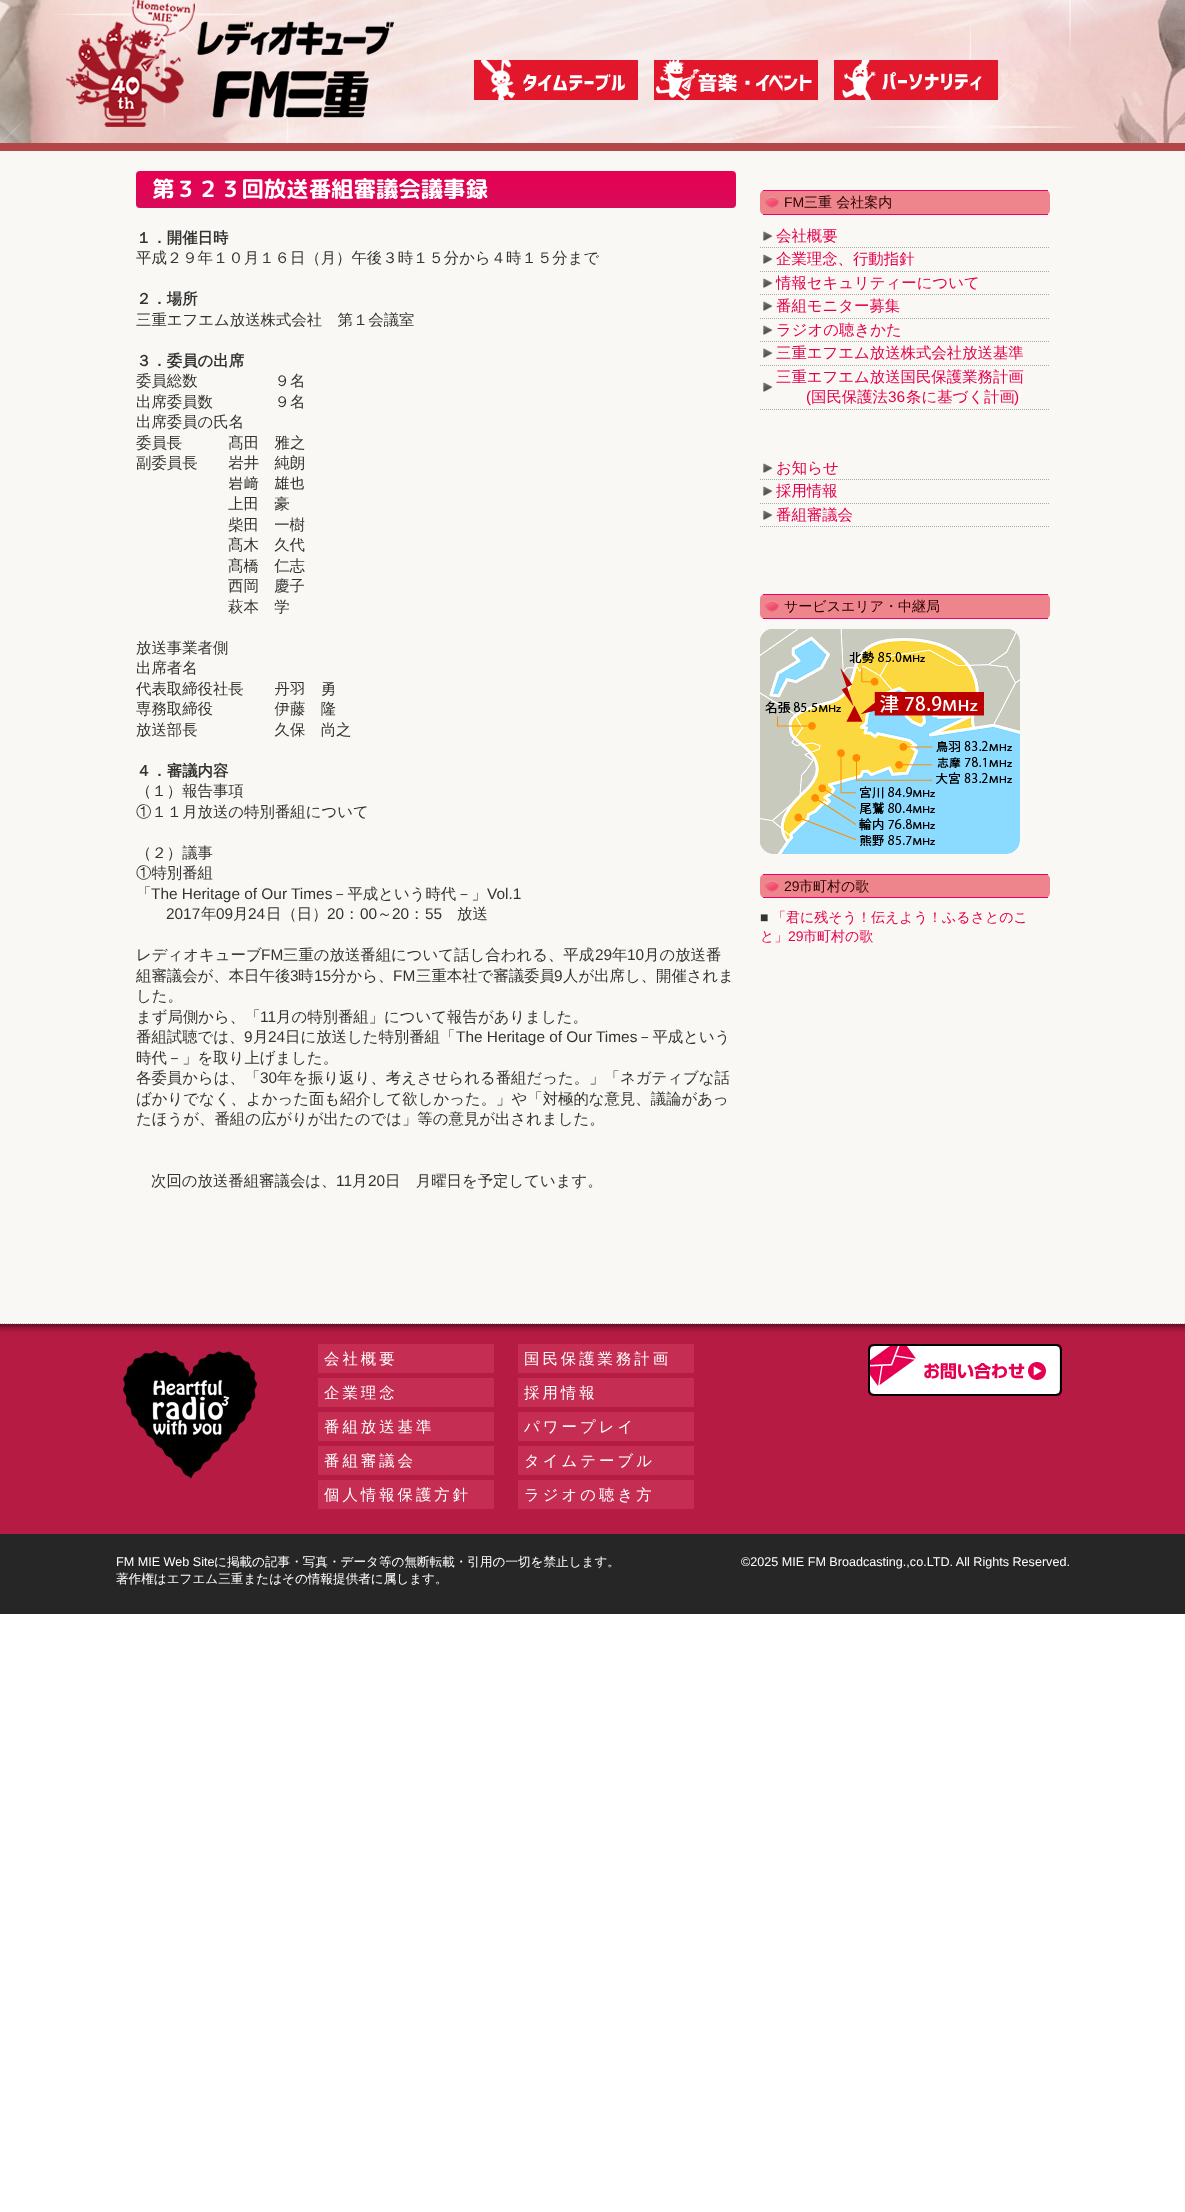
<!DOCTYPE html>
<meta charset="utf-8">
<style>body { margin: 0 } canvas { display: block }</style>
<canvas id="canvas" width="1185" height="2212"></canvas>
<script type="module">
  const canvas = document.getElementById("canvas");
  const ctx = canvas.getContext("2d");
  ctx.miterLimit = 4;
  ctx.fontKerning = "normal";
  async function loadImage(src) {
    const img = new Image();
    img.src = src;
    await img.decode();
    return img;
  }
  let gradient;

  ctx.fillStyle = "#ffffff";
  ctx.fillRect(0, 0, 1185, 2212);
  ctx.drawImage(await loadImage("img1.png"), 0, 0, 1185, 143);
  ctx.fillStyle = "#b34747";
  ctx.fillRect(0, 143, 1185, 8);
  ctx.drawImage(await loadImage("img2.png"), 66, 0, 328, 127);
  ctx.drawImage(await loadImage("img3.png"), 474, 60, 164, 40);
  ctx.drawImage(await loadImage("img4.png"), 654, 60, 164, 40);
  ctx.drawImage(await loadImage("img5.png"), 834, 60, 164, 40);
  ctx.fillStyle = "#f9f8f4";
  ctx.fillRect(0, 151, 1185, 1173);
  ctx.beginPath();
  ctx.moveTo(0, 1323.5);
  ctx.lineTo(1185, 1323.5);
  ctx.strokeStyle = "#cccccc";
  ctx.setLineDash([1, 1]);
  ctx.stroke();
  gradient = ctx.createLinearGradient(436, 171, 436, 208);
  gradient.addColorStop(0, "#e60051");
  gradient.addColorStop(1, "#d90b5a");
  ctx.fillStyle = gradient;
  ctx.beginPath();
  ctx.roundRect(136, 171, 600, 37, 4);
  ctx.fill();
  ctx.font = "bold 22.4px 'Rounded Mplus 1c Bold'";
  ctx.fillStyle = "#ffffff";
  ctx.fillText("第３２３回放送番組審議会議事録", 152, 197);
  ctx.font = "bold 15.4px WenQuanYi Zen Hei";
  ctx.fillStyle = "#333333";
  ctx.fillText("１．開催日時", 136, 243);
  ctx.font = "500 15.4px WenQuanYi Zen Hei";
  ctx.fillText("平成２９年１０月１６日（月）午後３時１５分から４時１５分まで", 136, 263);
  ctx.font = "bold 15.4px WenQuanYi Zen Hei";
  ctx.fillText("２．場所", 136, 304);
  ctx.font = "500 15.4px WenQuanYi Zen Hei";
  ctx.fillText("三重エフエム放送株式会社　第１会議室", 136, 325);
  ctx.font = "bold 15.4px WenQuanYi Zen Hei";
  ctx.fillText("３．委員の出席", 136, 366);
  ctx.font = "500 15.4px WenQuanYi Zen Hei";
  ctx.fillText("委員総数　　　　　９名", 136, 386);
  ctx.fillText("出席委員数　　　　９名", 136, 407);
  ctx.fillText("出席委員の氏名", 136, 427);
  ctx.fillText("委員長　　　髙田　雅之", 136, 448);
  ctx.fillText("副委員長　　岩井　純朗", 136, 468);
  ctx.font = "15.4px IPAPGothic";
  ctx.fillText("岩﨑　雄也", 228, 489);
  ctx.font = "500 15.4px WenQuanYi Zen Hei";
  ctx.fillText("上田　豪", 228, 509);
  ctx.fillText("柴田　一樹", 228, 530);
  ctx.fillText("髙木　久代", 228, 550);
  ctx.fillText("髙橋　仁志", 228, 571);
  ctx.fillText("西岡　慶子", 228, 591);
  ctx.fillText("萩本　学", 228, 612);
  ctx.fillText("放送事業者側", 136, 653);
  ctx.fillText("出席者名", 136, 673);
  ctx.fillText("代表取締役社長　　丹羽　勇", 136, 694);
  ctx.fillText("専務取締役　　　　伊藤　隆", 136, 714);
  ctx.fillText("放送部長　　　　　久保　尚之", 136, 735);
  ctx.font = "bold 15.4px WenQuanYi Zen Hei";
  ctx.fillText("４．審議内容", 136, 776);
  ctx.font = "500 15.4px WenQuanYi Zen Hei";
  ctx.fillText("（１）報告事項", 136, 796);
  ctx.fillText("①１１月放送の特別番組について", 136, 817);
  ctx.fillText("（２）議事", 136, 858);
  ctx.fillText("①特別番組", 136, 878);
  ctx.fillText("「", 136, 899);
  ctx.font = "15.4px Liberation Sans";
  ctx.fillText("The Heritage of Our Times", 151, 899);
  ctx.font = "500 15.4px WenQuanYi Zen Hei";
  ctx.fillText("－平成という時代－」", 332, 899);
  ctx.font = "15.4px Liberation Sans";
  ctx.fillText("Vol.1", 487, 899);
  ctx.fillText("2017", 166, 919);
  ctx.font = "500 15.4px WenQuanYi Zen Hei";
  ctx.fillText("年", 201, 919);
  ctx.font = "15.4px Liberation Sans";
  ctx.fillText("09", 216, 919);
  ctx.font = "500 15.4px WenQuanYi Zen Hei";
  ctx.fillText("月", 233, 919);
  ctx.font = "15.4px Liberation Sans";
  ctx.fillText("24", 248, 919);
  ctx.font = "500 15.4px WenQuanYi Zen Hei";
  ctx.fillText("日（日）", 266, 919);
  ctx.font = "15.4px Liberation Sans";
  ctx.fillText("20", 327, 919);
  ctx.font = "500 15.4px WenQuanYi Zen Hei";
  ctx.fillText("：", 344, 919);
  ctx.font = "15.4px Liberation Sans";
  ctx.fillText("00", 360, 919);
  ctx.font = "500 15.4px WenQuanYi Zen Hei";
  ctx.fillText("～", 377, 919);
  ctx.font = "15.4px Liberation Sans";
  ctx.fillText("20", 392, 919);
  ctx.font = "500 15.4px WenQuanYi Zen Hei";
  ctx.fillText("：", 409, 919);
  ctx.font = "15.4px Liberation Sans";
  ctx.fillText("55", 425, 919);
  ctx.font = "500 15.4px WenQuanYi Zen Hei";
  ctx.fillText("放送", 457, 919);
  ctx.fillText("レディオキューブ", 136, 960);
  ctx.font = "15.4px Liberation Sans";
  ctx.fillText("FM", 261, 960);
  ctx.font = "500 15.4px WenQuanYi Zen Hei";
  ctx.fillText("三重の放送番組について話し合われる、平成", 283, 960);
  ctx.font = "15.4px Liberation Sans";
  ctx.fillText("29", 595, 960);
  ctx.font = "500 15.4px WenQuanYi Zen Hei";
  ctx.fillText("年", 612, 960);
  ctx.font = "15.4px Liberation Sans";
  ctx.fillText("10", 627, 960);
  ctx.font = "500 15.4px WenQuanYi Zen Hei";
  ctx.fillText("月の放送番", 644, 960);
  ctx.fillText("組審議会が、本日午後", 136, 981);
  ctx.font = "15.4px Liberation Sans";
  ctx.fillText("3", 290, 981);
  ctx.font = "500 15.4px WenQuanYi Zen Hei";
  ctx.fillText("時", 298, 981);
  ctx.font = "15.4px Liberation Sans";
  ctx.fillText("15", 314, 981);
  ctx.font = "500 15.4px WenQuanYi Zen Hei";
  ctx.fillText("分から、", 331, 981);
  ctx.font = "15.4px Liberation Sans";
  ctx.fillText("FM", 393, 981);
  ctx.font = "500 15.4px WenQuanYi Zen Hei";
  ctx.fillText("三重本社で審議委員", 416, 981);
  ctx.font = "15.4px Liberation Sans";
  ctx.fillText("9", 554, 981);
  ctx.font = "500 15.4px WenQuanYi Zen Hei";
  ctx.fillText("人が出席し、開催されま", 563, 981);
  ctx.fillText("した。", 136, 1001);
  ctx.fillText("まず局側から、「", 136, 1022);
  ctx.font = "15.4px Liberation Sans";
  ctx.fillText("11", 260, 1022);
  ctx.font = "500 15.4px WenQuanYi Zen Hei";
  ctx.fillText("月の特別番組」について報告がありました。", 276, 1022);
  ctx.fillText("番組試聴では、", 136, 1042);
  ctx.font = "15.4px Liberation Sans";
  ctx.fillText("9", 244, 1042);
  ctx.font = "500 15.4px WenQuanYi Zen Hei";
  ctx.fillText("月", 253, 1042);
  ctx.font = "15.4px Liberation Sans";
  ctx.fillText("24", 268, 1042);
  ctx.font = "500 15.4px WenQuanYi Zen Hei";
  ctx.fillText("日に放送した特別番組「", 285, 1042);
  ctx.font = "15.4px Liberation Sans";
  ctx.fillText("The Heritage of Our Times", 456, 1042);
  ctx.font = "500 15.4px WenQuanYi Zen Hei";
  ctx.fillText("－平成という", 637, 1042);
  ctx.fillText("時代－」を取り上げました。", 136, 1063);
  ctx.fillText("各委員からは、「", 136, 1083);
  ctx.font = "15.4px Liberation Sans";
  ctx.fillText("30", 260, 1083);
  ctx.font = "500 15.4px WenQuanYi Zen Hei";
  ctx.fillText("年を振り返り、考えさせられる番組だった。」「ネガティブな話", 277, 1083);
  ctx.fillText("ばかりでなく、よかった面も紹介して欲しかった。」や「対極的な意見、議論があっ", 136, 1104);
  ctx.fillText("たほうが、番組の広がりが出たのでは」等の意見が出されました。", 136, 1124);
  ctx.fillText("次回の放送番組審議会は、", 151, 1186);
  ctx.font = "15.4px Liberation Sans";
  ctx.fillText("11", 336, 1186);
  ctx.font = "500 15.4px WenQuanYi Zen Hei";
  ctx.fillText("月", 352, 1186);
  ctx.font = "15.4px Liberation Sans";
  ctx.fillText("20", 368, 1186);
  ctx.font = "500 15.4px WenQuanYi Zen Hei";
  ctx.fillText("日　月曜日を予定しています。", 385, 1186);
  ctx.fillStyle = "#ef858c";
  ctx.beginPath();
  ctx.roundRect(760, 190, 290, 25, 5);
  ctx.fill();
  ctx.drawImage(await loadImage("img6.png"), 765, 196, 14, 12);
  ctx.fillStyle = "#ec0067";
  ctx.fillRect(763, 190, 285, 1);
  ctx.fillRect(763, 214, 285, 1);
  ctx.font = "14px Liberation Sans";
  ctx.fillStyle = "#2b0000";
  ctx.fillText("FM", 784, 207);
  ctx.font = "500 14px WenQuanYi Zen Hei";
  ctx.fillText("三重 会社案内", 804, 207);
  ctx.drawImage(await loadImage("img7.png"), 763, 231, 10, 10);
  ctx.beginPath();
  ctx.moveTo(760, 247.5);
  ctx.lineTo(1050, 247.5);
  ctx.strokeStyle = "#aaaaaa";
  ctx.stroke();
  ctx.font = "500 15.4px WenQuanYi Zen Hei";
  ctx.fillStyle = "#e5004f";
  ctx.fillText("会社概要", 776, 241);
  ctx.drawImage(await loadImage("img7.png"), 763, 254, 10, 10);
  ctx.beginPath();
  ctx.moveTo(760, 271.5);
  ctx.lineTo(1050, 271.5);
  ctx.stroke();
  ctx.fillText("企業理念、行動指針", 776, 264);
  ctx.drawImage(await loadImage("img7.png"), 763, 278, 10, 10);
  ctx.beginPath();
  ctx.moveTo(760, 294.5);
  ctx.lineTo(1050, 294.5);
  ctx.stroke();
  ctx.fillText("情報セキュリティーについて", 776, 288);
  ctx.drawImage(await loadImage("img7.png"), 763, 301, 10, 10);
  ctx.beginPath();
  ctx.moveTo(760, 318.5);
  ctx.lineTo(1050, 318.5);
  ctx.stroke();
  ctx.fillText("番組モニター募集", 776, 311);
  ctx.drawImage(await loadImage("img7.png"), 763, 325, 10, 10);
  ctx.beginPath();
  ctx.moveTo(760, 341.5);
  ctx.lineTo(1050, 341.5);
  ctx.stroke();
  ctx.fillText("ラジオの聴きかた", 776, 335);
  ctx.drawImage(await loadImage("img7.png"), 763, 348, 10, 10);
  ctx.beginPath();
  ctx.moveTo(760, 365.5);
  ctx.lineTo(1050, 365.5);
  ctx.stroke();
  ctx.fillText("三重エフエム放送株式会社放送基準", 776, 358);
  ctx.drawImage(await loadImage("img7.png"), 763, 382, 10, 10);
  ctx.beginPath();
  ctx.moveTo(760, 409.5);
  ctx.lineTo(1050, 409.5);
  ctx.stroke();
  ctx.fillText("三重エフエム放送国民保護業務計画", 776, 382);
  ctx.font = "15.4px Liberation Sans";
  ctx.fillText("(", 806, 402);
  ctx.font = "500 15.4px WenQuanYi Zen Hei";
  ctx.fillText("国民保護法", 811, 402);
  ctx.font = "15.4px Liberation Sans";
  ctx.fillText("36", 888, 402);
  ctx.font = "500 15.4px WenQuanYi Zen Hei";
  ctx.fillText("条に基づく計画", 906, 402);
  ctx.font = "15.4px Liberation Sans";
  ctx.fillText(")", 1014, 402);
  ctx.drawImage(await loadImage("img7.png"), 763, 463, 10, 10);
  ctx.beginPath();
  ctx.moveTo(760, 479.5);
  ctx.lineTo(1050, 479.5);
  ctx.stroke();
  ctx.font = "500 15.4px WenQuanYi Zen Hei";
  ctx.fillText("お知らせ", 776, 473);
  ctx.drawImage(await loadImage("img7.png"), 763, 486, 10, 10);
  ctx.beginPath();
  ctx.moveTo(760, 503.5);
  ctx.lineTo(1050, 503.5);
  ctx.stroke();
  ctx.fillText("採用情報", 776, 496);
  ctx.drawImage(await loadImage("img7.png"), 763, 510, 10, 10);
  ctx.beginPath();
  ctx.moveTo(760, 526.5);
  ctx.lineTo(1050, 526.5);
  ctx.stroke();
  ctx.fillText("番組審議会", 776, 520);
  ctx.fillStyle = "#ef858c";
  ctx.beginPath();
  ctx.roundRect(760, 594, 290, 25, 5);
  ctx.fill();
  ctx.drawImage(await loadImage("img6.png"), 765, 600, 14, 12);
  ctx.fillStyle = "#ec0067";
  ctx.fillRect(763, 594, 285, 1);
  ctx.fillRect(763, 618, 285, 1);
  ctx.font = "500 14px WenQuanYi Zen Hei";
  ctx.fillStyle = "#2b0000";
  ctx.fillText("サービスエリア・中継局", 784, 611);
  ctx.drawImage(await loadImage("img8.png"), 760, 629, 260, 225);
  ctx.fillStyle = "#ef858c";
  ctx.beginPath();
  ctx.roundRect(760, 874, 290, 24, 5);
  ctx.fill();
  ctx.drawImage(await loadImage("img6.png"), 765, 880, 14, 12);
  ctx.fillStyle = "#ec0067";
  ctx.fillRect(763, 874, 285, 1);
  ctx.fillRect(763, 897, 285, 1);
  ctx.font = "14px Liberation Sans";
  ctx.fillStyle = "#2b0000";
  ctx.fillText("29", 784, 891);
  ctx.font = "500 14px WenQuanYi Zen Hei";
  ctx.fillText("市町村の歌", 799, 891);
  ctx.font = "14px Liberation Sans";
  ctx.fillStyle = "#333333";
  ctx.fillText("■", 760, 922);
  ctx.font = "500 14px WenQuanYi Zen Hei";
  ctx.fillStyle = "#e5004f";
  ctx.fillText("「君に残そう！伝えよう！ふるさとのこ", 772, 922);
  ctx.fillText("と」", 760, 941);
  ctx.font = "14px Liberation Sans";
  ctx.fillText("29", 788, 941);
  ctx.font = "500 14px WenQuanYi Zen Hei";
  ctx.fillText("市町村の歌", 803, 941);
  ctx.fillStyle = "#b61b43";
  ctx.fillRect(0, 1324, 1185, 210);
  ctx.drawImage(await loadImage("img9.png"), 0, 1324, 1185, 9);
  ctx.drawImage(await loadImage("img10.png"), 118, 1344, 140, 136);
  ctx.fillStyle = "#c62d53";
  ctx.fillRect(318, 1344, 176, 29);
  ctx.letterSpacing = "3px";
  ctx.font = "500 15.4px WenQuanYi Zen Hei";
  ctx.fillStyle = "#ffffff";
  ctx.fillText("会社概要", 324, 1364);
  ctx.fillStyle = "#c62d53";
  ctx.fillRect(318, 1378, 176, 29);
  ctx.fillStyle = "#ffffff";
  ctx.fillText("企業理念", 324, 1398);
  ctx.fillStyle = "#c62d53";
  ctx.fillRect(318, 1412, 176, 29);
  ctx.fillStyle = "#ffffff";
  ctx.fillText("番組放送基準", 324, 1432);
  ctx.fillStyle = "#c62d53";
  ctx.fillRect(318, 1446, 176, 29);
  ctx.fillStyle = "#ffffff";
  ctx.fillText("番組審議会", 324, 1466);
  ctx.fillStyle = "#c62d53";
  ctx.fillRect(318, 1480, 176, 29);
  ctx.fillStyle = "#ffffff";
  ctx.fillText("個人情報保護方針", 324, 1500);
  ctx.fillStyle = "#c62d53";
  ctx.fillRect(518, 1344, 176, 29);
  ctx.fillStyle = "#ffffff";
  ctx.fillText("国民保護業務計画", 524, 1364);
  ctx.fillStyle = "#c62d53";
  ctx.fillRect(518, 1378, 176, 29);
  ctx.fillStyle = "#ffffff";
  ctx.fillText("採用情報", 524, 1398);
  ctx.fillStyle = "#c62d53";
  ctx.fillRect(518, 1412, 176, 29);
  ctx.fillStyle = "#ffffff";
  ctx.fillText("パワープレイ", 524, 1432);
  ctx.fillStyle = "#c62d53";
  ctx.fillRect(518, 1446, 176, 29);
  ctx.fillStyle = "#ffffff";
  ctx.fillText("タイムテーブル", 524, 1466);
  ctx.fillStyle = "#c62d53";
  ctx.fillRect(518, 1480, 176, 29);
  ctx.fillStyle = "#ffffff";
  ctx.fillText("ラジオの聴き方", 524, 1500);
  ctx.drawImage(await loadImage("img11.png"), 868, 1344, 194, 52);
  ctx.fillStyle = "#262626";
  ctx.fillRect(0, 1534, 1185, 80);
  ctx.letterSpacing = "0px";
  ctx.font = "12.6px Liberation Sans";
  ctx.fillStyle = "#ffffff";
  ctx.fillText("FM MIE Web Site", 116, 1566);
  ctx.font = "500 12.6px WenQuanYi Zen Hei";
  ctx.fillText("に掲載の記事・写真・データ等の無断転載・引用の一切を禁止します。", 214, 1566);
  ctx.fillText("著作権はエフエム三重またはその情報提供者に属します。", 116, 1583);
  ctx.font = "12.6px Liberation Sans";
  ctx.fillText("©2025 MIE FM Broadcasting.,co.LTD. All Rights Reserved.", 741, 1566);
</script>
